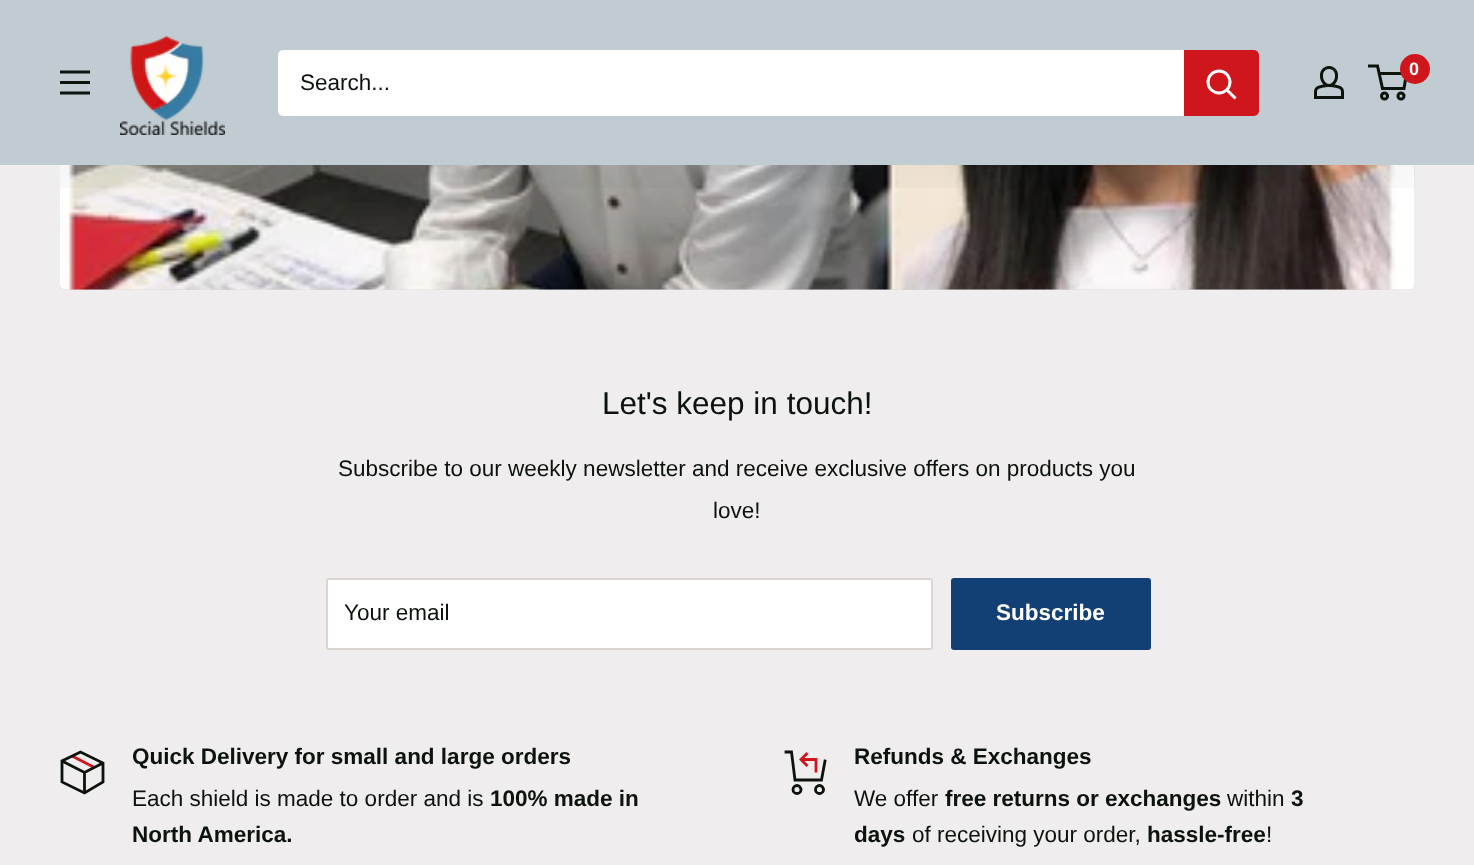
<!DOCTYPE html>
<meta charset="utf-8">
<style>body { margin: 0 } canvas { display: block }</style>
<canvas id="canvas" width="1474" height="865"></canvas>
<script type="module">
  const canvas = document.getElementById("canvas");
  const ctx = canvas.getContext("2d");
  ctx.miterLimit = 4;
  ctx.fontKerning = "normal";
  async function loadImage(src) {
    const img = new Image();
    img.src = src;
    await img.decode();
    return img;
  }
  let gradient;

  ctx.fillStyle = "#f0edee";
  ctx.fillRect(0, 0, 1474, 865);
  ctx.fillStyle = "#f3f4f4";
  ctx.beginPath();
  ctx.roundRect(60, -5, 1355, 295, 5);
  ctx.fill();
  ctx.fillStyle = "#c1ccd2";
  ctx.fillRect(0, 0, 1474, 165);
  ctx.drawImage(await loadImage("img1.png"), 60, 70, 30, 25);
  ctx.drawImage(await loadImage("img2.png"), 120, 35, 105, 100);
  ctx.fillStyle = "#ffffff";
  ctx.beginPath();
  ctx.roundRect(278, 50, 981, 66, 5);
  ctx.fill();
  ctx.font = "22.5px Liberation Sans";
  ctx.fillStyle = "#0c120c";
  ctx.fillText("Search...", 300, 90);
  ctx.fillStyle = "#cf161c";
  ctx.beginPath();
  ctx.roundRect(1184, 50, 75, 66, [0, 5, 5, 0]);
  ctx.fill();
  ctx.beginPath();
  ctx.moveTo(1234.5, 97.5);
  ctx.lineTo(1227, 90);
  ctx.strokeStyle = "#ffffff";
  ctx.lineWidth = 3;
  ctx.lineCap = "square";
  ctx.stroke();
  ctx.beginPath();
  ctx.arc(1219, 82, 11, 0, Math.PI * 2);
  ctx.stroke();
  ctx.drawImage(await loadImage("img3.png"), 1314, 66, 30, 33);
  ctx.beginPath();
  ctx.arc(1384.5, 96, 3, 0, Math.PI * 2);
  ctx.strokeStyle = "#0c120c";
  ctx.stroke();
  ctx.beginPath();
  ctx.arc(1401, 96, 3, 0, Math.PI * 2);
  ctx.stroke();
  ctx.beginPath();
  ctx.moveTo(1379, 73.5);
  ctx.lineTo(1406.5, 73.5);
  ctx.lineTo(1404, 88.5);
  ctx.lineTo(1382.5, 88.5);
  ctx.lineTo(1377.5, 66);
  ctx.lineTo(1368, 66);
  ctx.lineCap = "butt";
  ctx.stroke();
  ctx.beginPath();
  ctx.arc(1415, 69, 15, 0, Math.PI * 2);
  ctx.fill();
  ctx.font = "bold 18px Liberation Sans";
  ctx.fillStyle = "#ffffff";
  ctx.fillText("0", 1409, 75);
  ctx.drawImage(await loadImage("img4.png"), 60, 165, 1355, 125);
  ctx.drawImage(await loadImage("img5.png"), 60, 165, 1355, 125);
  gradient = ctx.createLinearGradient(737, 290, 737, -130);
  gradient.addColorStop(0.15, "rgba(0, 0, 0, 0)");
  gradient.addColorStop(1, "rgba(0, 0, 0, 0.2)");
  ctx.fillStyle = gradient;
  ctx.fillRect(60, 165, 1355, 23);
  ctx.font = "31.5px Liberation Sans";
  ctx.fillStyle = "#0c120c";
  ctx.fillText("Let's keep in touch!", 602, 414);
  ctx.font = "22.5px Liberation Sans";
  ctx.fillText("Subscribe to our weekly newsletter and receive exclusive offers on products you", 338, 476);
  ctx.fillText("love!", 713, 518);
  ctx.fillStyle = "#ffffff";
  ctx.beginPath();
  ctx.roundRect(327, 579, 605, 70, 2);
  ctx.fill();
  ctx.strokeStyle = "#dcd5cf";
  ctx.lineWidth = 2;
  ctx.stroke();
  ctx.fillStyle = "#0c120c";
  ctx.fillText("Your email", 344, 620);
  ctx.fillStyle = "#134074";
  ctx.beginPath();
  ctx.roundRect(951, 578, 200, 72, 3);
  ctx.fill();
  ctx.font = "bold 22.5px Liberation Sans";
  ctx.fillStyle = "#ffffff";
  ctx.fillText("Subscribe", 996, 620);
  ctx.beginPath();
  ctx.moveTo(72, 756);
  ctx.lineTo(94.5, 767.5);
  ctx.strokeStyle = "#cf161c";
  ctx.lineWidth = 2.8;
  ctx.stroke();
  ctx.beginPath();
  ctx.moveTo(103, 763);
  ctx.lineTo(84.5, 772.5);
  ctx.lineTo(62, 761);
  ctx.moveTo(84.5, 772.5);
  ctx.lineTo(84.5, 793);
  ctx.strokeStyle = "#0c120c";
  ctx.stroke();
  ctx.beginPath();
  ctx.moveTo(103, 763);
  ctx.lineTo(103, 782);
  ctx.lineTo(84.5, 793);
  ctx.lineTo(62, 782);
  ctx.lineTo(62, 761);
  ctx.lineTo(80.5, 752);
  ctx.closePath();
  ctx.lineCap = "square";
  ctx.stroke();
  ctx.fillStyle = "#0c120c";
  ctx.fillText("Quick Delivery for small and large orders", 132, 764);
  ctx.font = "22.5px Liberation Sans";
  ctx.fillText("Each shield is made to order and is", 132, 806);
  ctx.font = "bold 22.5px Liberation Sans";
  ctx.fillText("100% made in", 490, 806);
  ctx.fillText("North America.", 132, 842);
  ctx.beginPath();
  ctx.moveTo(801, 759.5);
  ctx.lineTo(816, 759.5);
  ctx.lineTo(816, 772.5);
  ctx.strokeStyle = "#cf161c";
  ctx.lineCap = "butt";
  ctx.stroke();
  ctx.beginPath();
  ctx.moveTo(806.5, 765);
  ctx.lineTo(801, 759.5);
  ctx.lineTo(806.5, 754);
  ctx.lineCap = "square";
  ctx.stroke();
  ctx.beginPath();
  ctx.moveTo(825, 761);
  ctx.lineTo(821.5, 780);
  ctx.lineTo(795, 780);
  ctx.lineTo(791.5, 752);
  ctx.lineTo(786, 752);
  ctx.strokeStyle = "#0c120c";
  ctx.stroke();
  ctx.beginPath();
  ctx.arc(797, 789.5, 4, 0, Math.PI * 2);
  ctx.stroke();
  ctx.beginPath();
  ctx.arc(819.5, 789.5, 4, 0, Math.PI * 2);
  ctx.stroke();
  ctx.fillText("Refunds & Exchanges", 854, 764);
  ctx.font = "22.5px Liberation Sans";
  ctx.fillText("We offer", 854, 806);
  ctx.font = "bold 22.5px Liberation Sans";
  ctx.fillText("free returns or exchanges", 945, 806);
  ctx.font = "22.5px Liberation Sans";
  ctx.fillText("within", 1227, 806);
  ctx.font = "bold 22.5px Liberation Sans";
  ctx.fillText("3", 1291, 806);
  ctx.fillText("days", 854, 842);
  ctx.font = "22.5px Liberation Sans";
  ctx.fillText("of receiving your order,", 912, 842);
  ctx.font = "bold 22.5px Liberation Sans";
  ctx.fillText("hassle-free", 1147, 842);
  ctx.font = "22.5px Liberation Sans";
  ctx.fillText("!", 1266, 842);
</script>
